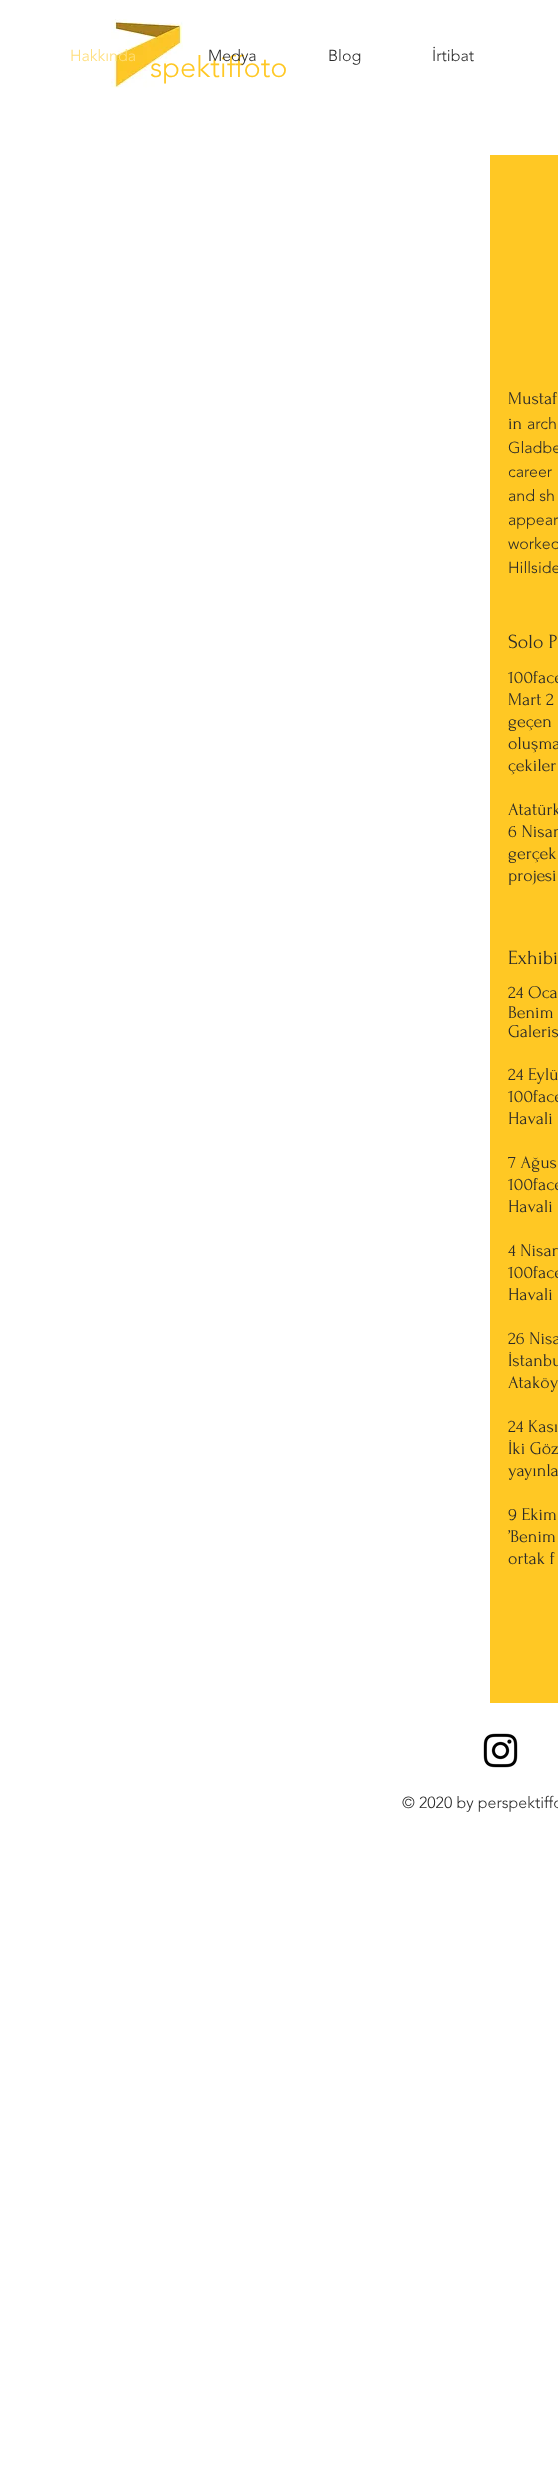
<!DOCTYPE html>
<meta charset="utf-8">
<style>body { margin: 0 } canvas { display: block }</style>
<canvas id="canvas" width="558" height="2472"></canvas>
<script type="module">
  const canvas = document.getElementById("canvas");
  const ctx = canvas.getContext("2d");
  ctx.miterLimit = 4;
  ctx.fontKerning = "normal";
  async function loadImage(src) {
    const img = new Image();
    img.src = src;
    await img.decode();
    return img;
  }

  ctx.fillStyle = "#ffffff";
  ctx.fillRect(0, 0, 558, 2472);
  ctx.drawImage(await loadImage("img1.png"), 111, 19, 72, 69);
  ctx.font = "300 16px 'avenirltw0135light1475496'";
  ctx.fillStyle = "#ffde7a";
  ctx.fillText("Hakkında", 70, 61);
  ctx.font = "300 29px 'avenirltw0135light1475496'";
  ctx.fillStyle = "#ffc824";
  ctx.fillText("spektiffoto", 150, 77);
  ctx.font = "300 16px 'avenirltw0135light1475496'";
  ctx.fillStyle = "#2a2a2a";
  ctx.fillText("Medya", 208, 61);
  ctx.fillText("Blog", 328, 61);
  ctx.fillText("İrtibat", 432, 61);
  ctx.fillStyle = "#ffc824";
  ctx.fillRect(490, 155, 68, 1548);
  ctx.font = "18px Forum";
  ctx.fillStyle = "#2a2a2a";
  ctx.fillText("Mustaf", 508, 404);
  ctx.fillText("in", 508, 429);
  ctx.font = "300 16px 'avenirltw0135light1475496'";
  ctx.fillText("arch", 527, 429);
  ctx.fillText("Gladbe", 508, 453);
  ctx.fillText("career", 508, 477);
  ctx.fillText("and sh", 508, 501);
  ctx.fillText("appear", 508, 525);
  ctx.fillText("worked", 508, 549);
  ctx.fillText("Hillside", 508, 573);
  ctx.font = "20px Forum";
  ctx.fillText("Solo P", 508, 648);
  ctx.font = "18px Forum";
  ctx.fillText("100face", 508, 683);
  ctx.fillText("Mart 2", 508, 705);
  ctx.fillText("geçen", 508, 727);
  ctx.fillText("oluşma", 508, 749);
  ctx.fillText("çekiler", 508, 771);
  ctx.fillText("Atatürk", 508, 815);
  ctx.fillText("6 Nisan", 508, 837);
  ctx.fillText("gerçek", 508, 859);
  ctx.fillText("projesi", 508, 881);
  ctx.font = "20px Forum";
  ctx.fillText("Exhibi", 508, 964);
  ctx.font = "18px Forum";
  ctx.fillText("24 Oca", 508, 998);
  ctx.fillText("Benim", 508, 1018);
  ctx.fillText("Galeris", 508, 1037);
  ctx.fillText("24 Eylü", 508, 1080);
  ctx.fillText("100face", 508, 1102);
  ctx.fillText("Havali", 508, 1124);
  ctx.fillText("7 Ağus", 508, 1168);
  ctx.fillText("100face", 508, 1190);
  ctx.fillText("Havali", 508, 1212);
  ctx.fillText("4 Nisan", 508, 1256);
  ctx.fillText("100face", 508, 1278);
  ctx.fillText("Havali", 508, 1300);
  ctx.fillText("26 Nisa", 508, 1344);
  ctx.fillText("İstanbu", 508, 1366);
  ctx.fillText("Ataköy", 508, 1388);
  ctx.fillText("24 Kası", 508, 1432);
  ctx.fillText("İki Göz", 508, 1454);
  ctx.fillText("yayınla", 508, 1476);
  ctx.fillText("9 Ekim", 508, 1520);
  ctx.fillText("’Benim", 508, 1542);
  ctx.fillText("ortak f", 508, 1564);
  ctx.drawImage(await loadImage("img2.png"), 483, 1733, 35, 35);
  ctx.font = "300 16px 'avenirltw0135light1475496'";
  ctx.fillText("© 2020 by perspektiffo", 402, 1808);
</script>
